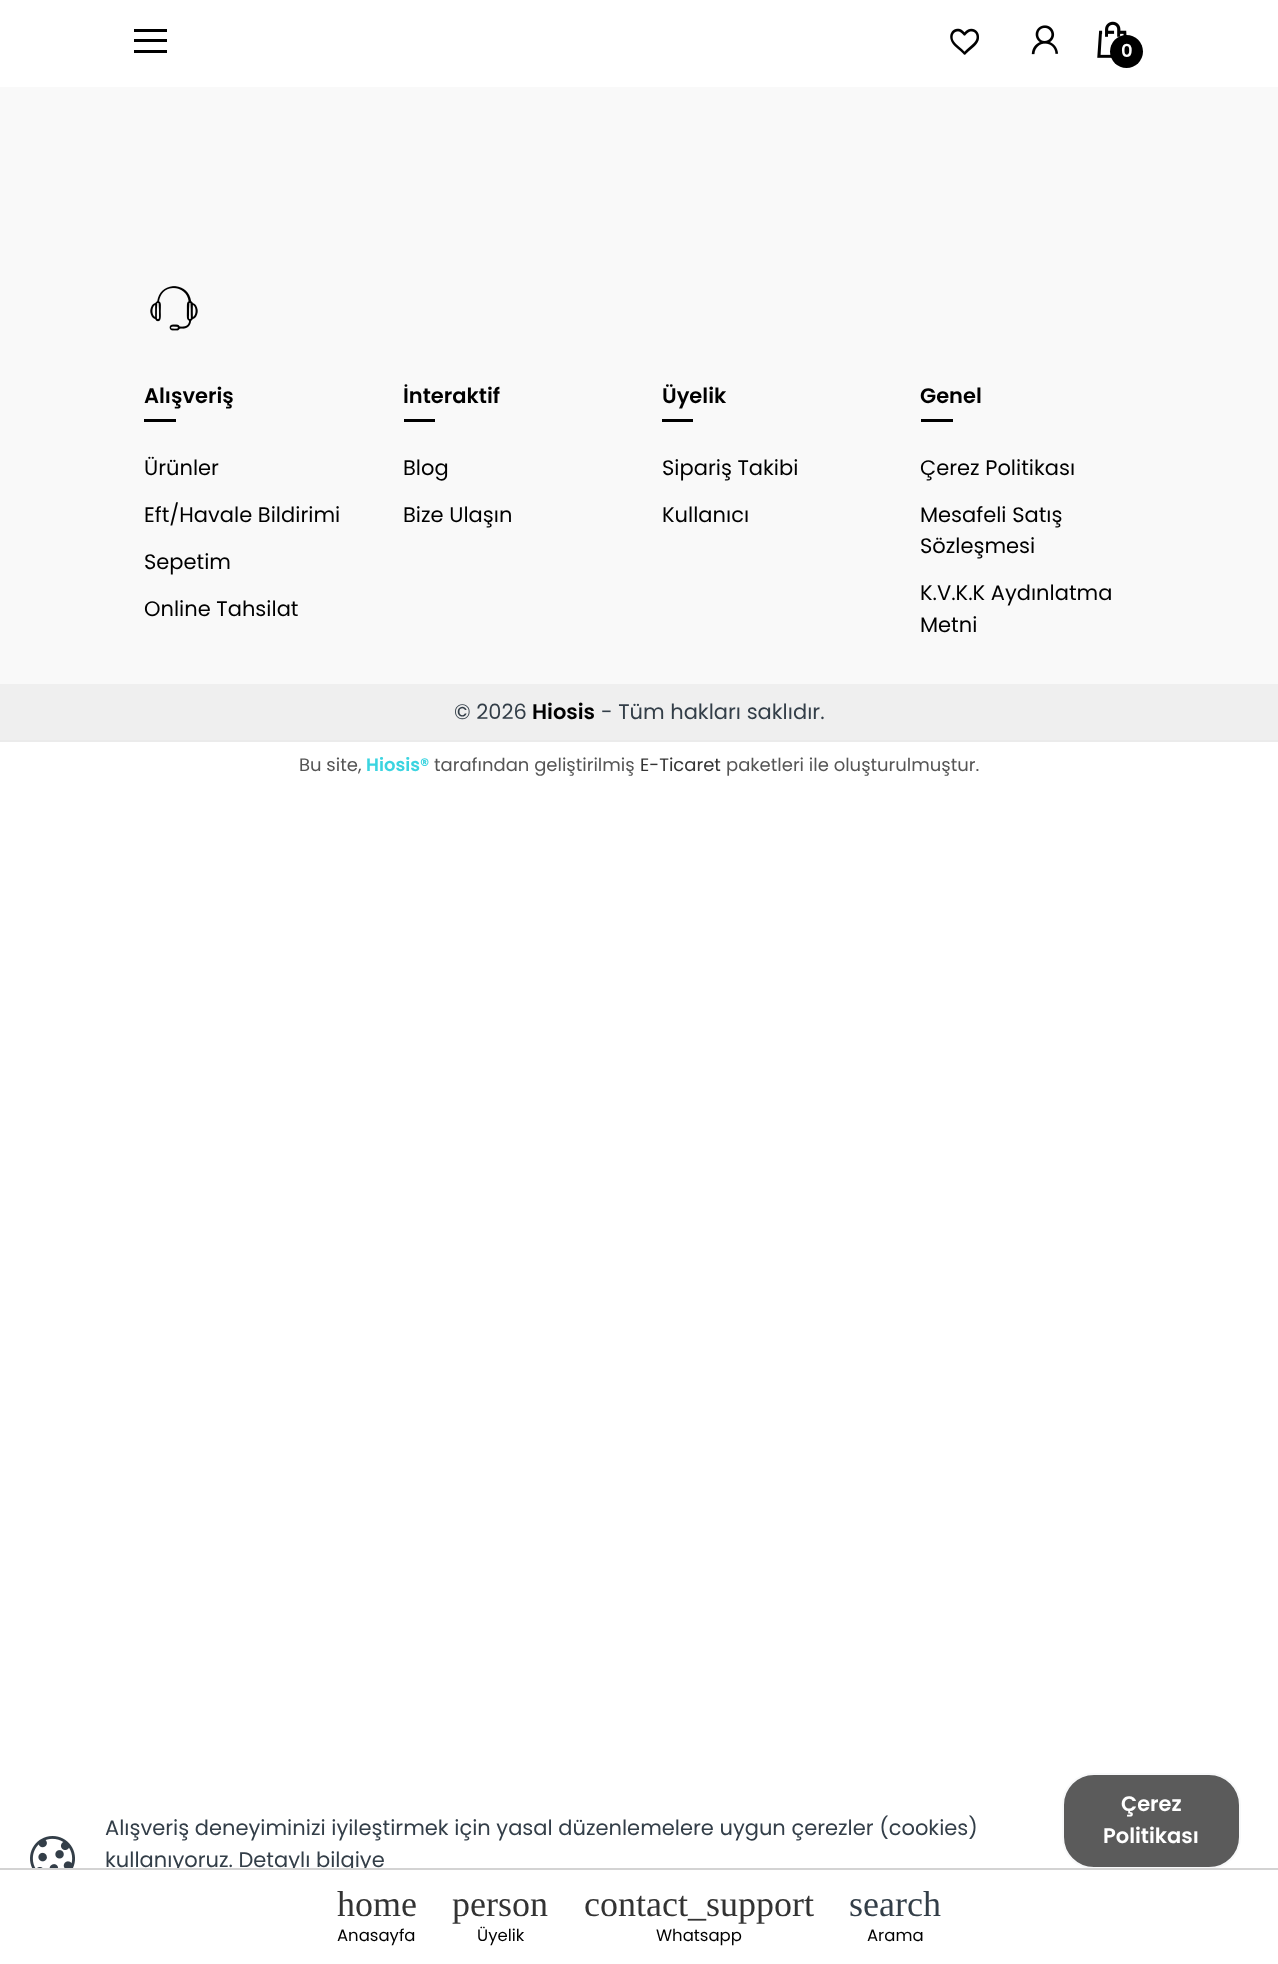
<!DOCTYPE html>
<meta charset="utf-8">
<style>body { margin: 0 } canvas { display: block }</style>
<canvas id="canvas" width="1278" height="1964"></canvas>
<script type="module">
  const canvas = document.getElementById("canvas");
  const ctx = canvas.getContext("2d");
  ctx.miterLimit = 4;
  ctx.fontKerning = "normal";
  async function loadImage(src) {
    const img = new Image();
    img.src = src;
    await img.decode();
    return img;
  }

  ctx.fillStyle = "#ffffff";
  ctx.fillRect(0, 0, 1278, 1964);
  ctx.fillStyle = "#000000";
  ctx.fillRect(134, 29, 33, 3);
  ctx.fillRect(134, 39, 33, 3);
  ctx.fillRect(134, 50, 33, 3);
  ctx.drawImage(await loadImage("img1.png"), 950, 28, 29, 27);
  ctx.drawImage(await loadImage("img2.png"), 1031, 25, 28, 30);
  ctx.drawImage(await loadImage("img3.png"), 1097, 21, 30, 37);
  ctx.beginPath();
  ctx.arc(1126.5, 51.5, 16.5, 0, Math.PI * 2);
  ctx.fill();
  ctx.font = "600 18px Poppins";
  ctx.fillStyle = "#ffffff";
  ctx.fillText("0", 1121, 57);
  ctx.fillStyle = "#f9f9f9";
  ctx.fillRect(0, 87, 1278, 597);
  ctx.drawImage(await loadImage("img4.png"), 150, 286, 48, 45);
  ctx.font = "600 21px Poppins";
  ctx.fillStyle = "#000000";
  ctx.fillText("Alışveriş", 144, 403);
  ctx.fillRect(144, 419, 32, 3);
  ctx.font = "21px Poppins";
  ctx.fillText("Ürünler", 144, 475);
  ctx.fillText("Eft/Havale Bildirimi", 144, 522);
  ctx.fillText("Sepetim", 144, 569);
  ctx.fillText("Online Tahsilat", 144, 616);
  ctx.font = "600 21px Poppins";
  ctx.fillText("İnteraktif", 403, 403);
  ctx.fillRect(404, 419, 31, 3);
  ctx.font = "21px Poppins";
  ctx.fillText("Blog", 403, 475);
  ctx.fillText("Bize Ulaşın", 403, 522);
  ctx.font = "600 21px Poppins";
  ctx.fillText("Üyelik", 662, 403);
  ctx.fillRect(662, 419, 31, 3);
  ctx.font = "21px Poppins";
  ctx.fillText("Sipariş Takibi", 662, 475);
  ctx.fillText("Kullanıcı", 662, 522);
  ctx.font = "600 21px Poppins";
  ctx.fillText("Genel", 920, 403);
  ctx.fillRect(921, 419, 32, 3);
  ctx.font = "21px Poppins";
  ctx.fillText("Çerez Politikası", 920, 475);
  ctx.fillText("Mesafeli Satış", 920, 522);
  ctx.fillText("Sözleşmesi", 920, 553);
  ctx.fillText("K.V.K.K Aydınlatma", 920, 600);
  ctx.fillText("Metni", 920, 632);
  ctx.fillStyle = "#efefef";
  ctx.fillRect(0, 684, 1278, 56);
  ctx.fillStyle = "#333e48";
  ctx.fillText("© 2026", 454, 719);
  ctx.font = "600 21px Poppins";
  ctx.fillStyle = "#000000";
  ctx.fillText("Hiosis", 532, 719);
  ctx.font = "21px Poppins";
  ctx.fillStyle = "#333e48";
  ctx.fillText("- Tüm hakları saklıdır.", 601, 719);
  ctx.fillStyle = "#ebebeb";
  ctx.fillRect(0, 740, 1278, 2);
  ctx.font = "18px Poppins";
  ctx.fillStyle = "#555555";
  ctx.fillText("Bu site,", 299, 771);
  ctx.font = "600 18px Poppins";
  ctx.fillStyle = "#3bd4e0";
  ctx.fillText("Hiosis®", 366, 771);
  ctx.font = "18px Poppins";
  ctx.fillStyle = "#555555";
  ctx.fillText("tarafından geliştirilmiş", 434, 771);
  ctx.fillStyle = "#333333";
  ctx.fillText("E-Ticaret", 640, 771);
  ctx.fillStyle = "#555555";
  ctx.fillText("paketleri ile oluşturulmuştur.", 726, 771);
  ctx.font = "21px Poppins";
  ctx.fillStyle = "#333e48";
  ctx.fillText("kullanıyoruz. Detaylı bilgiye", 105, 1867);
  ctx.fillStyle = "#ffffff";
  ctx.fillRect(175, 1870, 191, 3);
  ctx.fillStyle = "#5b5b5b";
  ctx.beginPath();
  ctx.roundRect(1063, 1774, 177, 94, 31);
  ctx.fill();
  ctx.strokeStyle = "#f8f9fa";
  ctx.lineWidth = 2;
  ctx.stroke();
  ctx.fillStyle = "#d3d3d3";
  ctx.fillRect(0, 1868, 1278, 2);
  ctx.font = "36px Liberation Serif";
  ctx.fillStyle = "#333333";
  ctx.fillText("home", 337, 1916);
  ctx.font = "16.5px Poppins";
  ctx.fillStyle = "#000000";
  ctx.fillText("Anasayfa", 337, 1941);
  ctx.font = "36px Liberation Serif";
  ctx.fillStyle = "#333333";
  ctx.fillText("person", 452, 1916);
  ctx.font = "16.5px Poppins";
  ctx.fillStyle = "#000000";
  ctx.fillText("Üyelik", 477, 1941);
  ctx.font = "36px Liberation Serif";
  ctx.fillStyle = "#333333";
  ctx.fillText("contact_support", 584, 1916);
  ctx.font = "16.5px Poppins";
  ctx.fillStyle = "#000000";
  ctx.fillText("Whatsapp", 656, 1941);
  ctx.font = "36px Liberation Serif";
  ctx.fillStyle = "#333e48";
  ctx.fillText("search", 849, 1916);
  ctx.font = "16.5px Poppins";
  ctx.fillStyle = "#000000";
  ctx.fillText("Arama", 867, 1941);
  ctx.drawImage(await loadImage("img5.png"), 30, 1836, 45, 32);
  ctx.font = "21px Poppins";
  ctx.fillStyle = "#333e48";
  ctx.fillText("Alışveriş deneyiminizi iyileştirmek için yasal düzenlemelere uygun çerezler (cookies)", 105, 1835);
  ctx.font = "600 21px Poppins";
  ctx.fillStyle = "#ffffff";
  ctx.fillText("Çerez", 1121, 1811);
  ctx.fillText("Politikası", 1103, 1843);
</script>
